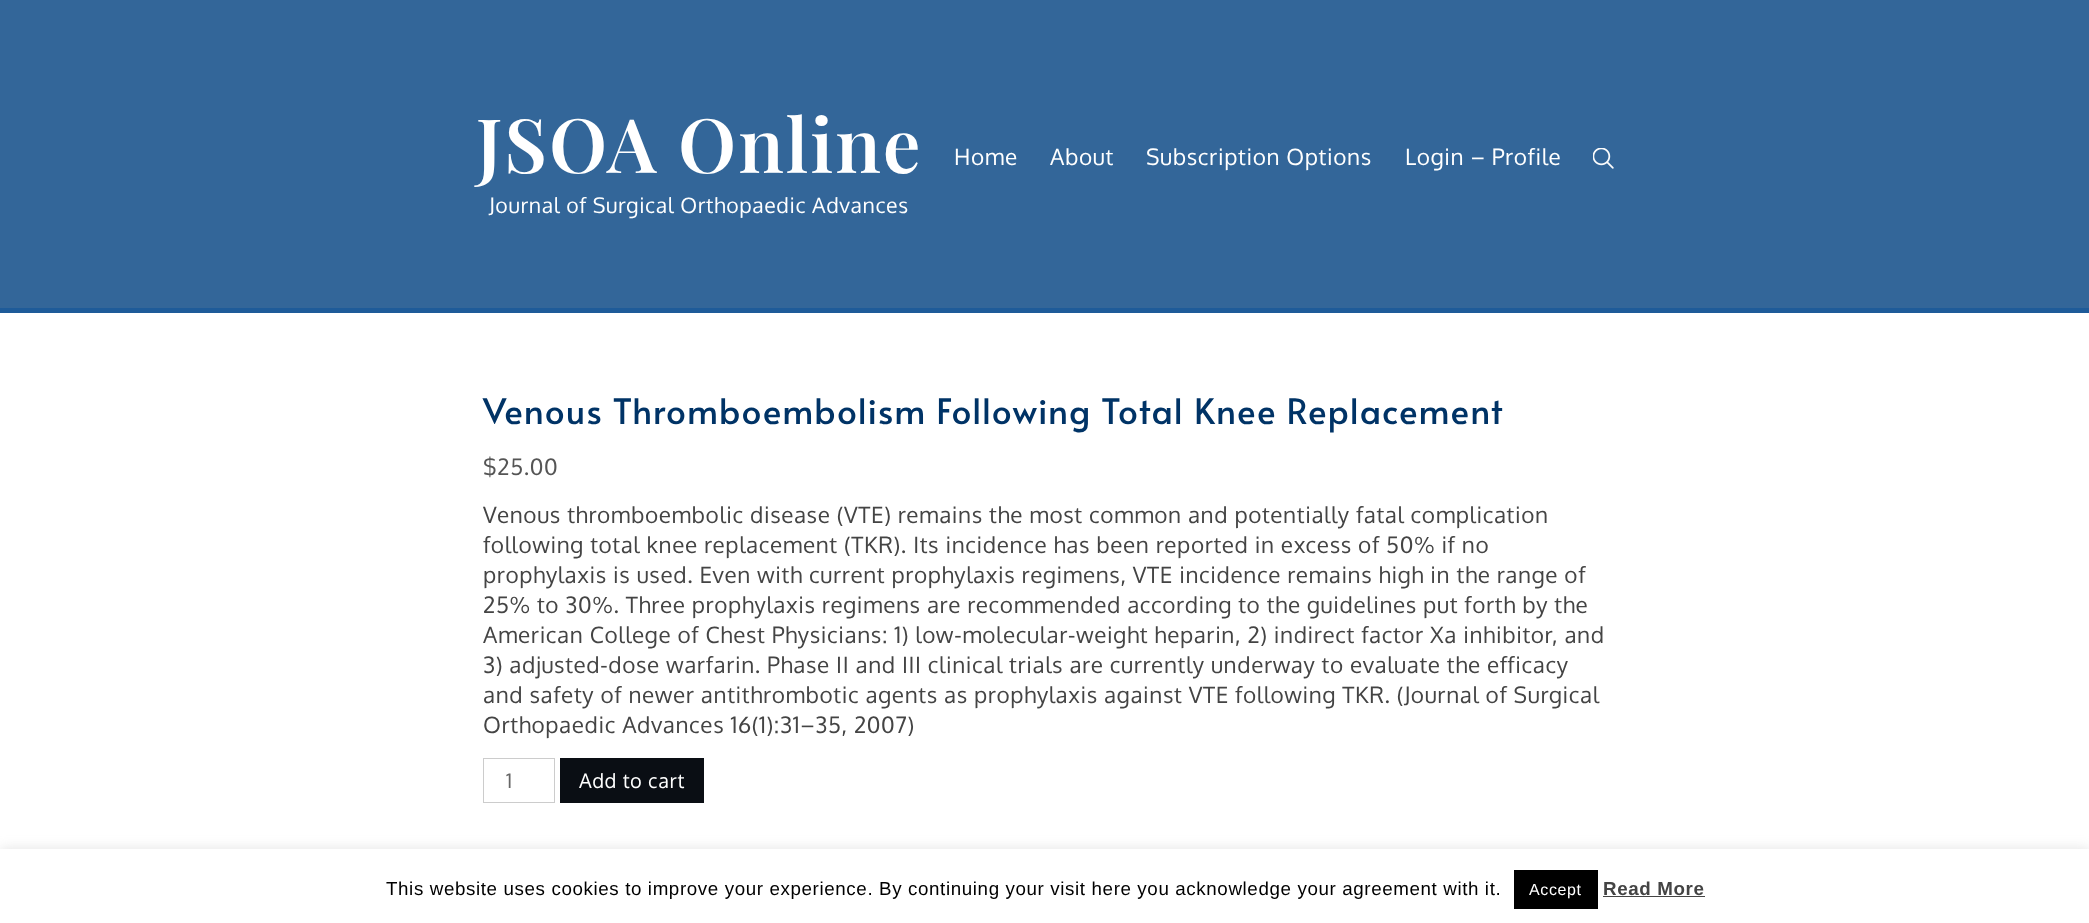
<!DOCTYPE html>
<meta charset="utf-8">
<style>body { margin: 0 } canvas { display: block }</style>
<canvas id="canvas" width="2089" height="923"></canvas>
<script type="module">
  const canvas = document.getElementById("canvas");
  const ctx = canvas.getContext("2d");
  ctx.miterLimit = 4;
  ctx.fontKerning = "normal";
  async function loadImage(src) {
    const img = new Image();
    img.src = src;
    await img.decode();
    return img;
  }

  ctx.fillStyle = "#ffffff";
  ctx.fillRect(0, 0, 2089, 923);
  ctx.fillStyle = "#336699";
  ctx.fillRect(0, 0, 2089, 308);
  ctx.letterSpacing = "1.9px";
  ctx.font = "600 75px Playfair Display";
  ctx.fillStyle = "#ffffff";
  ctx.fillText("JSOA Online", 476, 173);
  ctx.letterSpacing = "0.62px";
  ctx.font = "21.25px Oxygen";
  ctx.fillText("Journal of Surgical Orthopaedic Advances", 489, 213);
  ctx.font = "22.5px Oxygen";
  ctx.fillText("Home", 954, 165);
  ctx.fillText("About", 1050, 165);
  ctx.fillText("Subscription Options", 1146, 165);
  ctx.fillText("Login – Profile", 1405, 165);
  ctx.drawImage(await loadImage("img1.png"), 1593, 148, 21, 21);
  ctx.fillStyle = "#1e5b99";
  ctx.fillRect(0, 308, 2089, 5);
  ctx.letterSpacing = "1.25px";
  ctx.font = "35px Alata";
  ctx.fillStyle = "#003366";
  ctx.fillText("Venous Thromboembolism Following Total Knee Replacement", 483, 424);
  ctx.letterSpacing = "0.62px";
  ctx.font = "22.5px Oxygen";
  ctx.fillStyle = "#555555";
  ctx.fillText("$25.00", 483, 475);
  ctx.fillStyle = "#444444";
  ctx.fillText("Venous thromboembolic disease (VTE) remains the most common and potentially fatal complication", 483, 523);
  ctx.fillText("following total knee replacement (TKR). Its incidence has been reported in excess of 50% if no", 483, 553);
  ctx.fillText("prophylaxis is used. Even with current prophylaxis regimens, VTE incidence remains high in the range of", 483, 583);
  ctx.fillText("25% to 30%. Three prophylaxis regimens are recommended according to the guidelines put forth by the", 483, 613);
  ctx.fillText("American College of Chest Physicians: 1) low-molecular-weight heparin, 2) indirect factor Xa inhibitor, and", 483, 643);
  ctx.fillText("3) adjusted-dose warfarin. Phase II and III clinical trials are currently underway to evaluate the efficacy", 483, 673);
  ctx.fillText("and safety of newer antithrombotic agents as prophylaxis against VTE following TKR. (Journal of Surgical", 483, 703);
  ctx.fillText("Orthopaedic Advances 16(1):31–35, 2007)", 483, 733);
  ctx.strokeStyle = "#cccccc";
  ctx.strokeRect(483.5, 758.5, 71, 44);
  ctx.font = "20px Oxygen";
  ctx.fillStyle = "#666666";
  ctx.fillText("1", 506, 788);
  ctx.fillStyle = "#0a0e14";
  ctx.fillRect(560, 758, 144, 45);
  ctx.fillStyle = "#ffffff";
  ctx.fillText("Add to cart", 579, 788);
  ctx.fillStyle = "rgba(172, 171, 171, 0.3)";
  ctx.filter = "blur(6px)";
  ctx.beginPath();
  ctx.rect(0, 848, 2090, 75);
  ctx.fill();
  ctx.filter = "none";
  ctx.fillStyle = "#ffffff";
  ctx.fillRect(0, 849, 2089, 74);
  ctx.font = "18.75px Liberation Sans";
  ctx.fillStyle = "#000000";
  ctx.fillText("This website uses cookies to improve your experience. By continuing your visit here you acknowledge your agreement with it.", 386, 895);
  ctx.fillRect(1514, 870, 84, 39);
  ctx.font = "16px Liberation Sans";
  ctx.fillStyle = "#ffffff";
  ctx.fillText("Accept", 1529, 895);
  ctx.font = "bold 18.75px Liberation Sans";
  ctx.fillStyle = "#444444";
  ctx.fillText("Read More", 1603, 895);
  ctx.fillRect(1603, 896, 102, 1);
</script>
